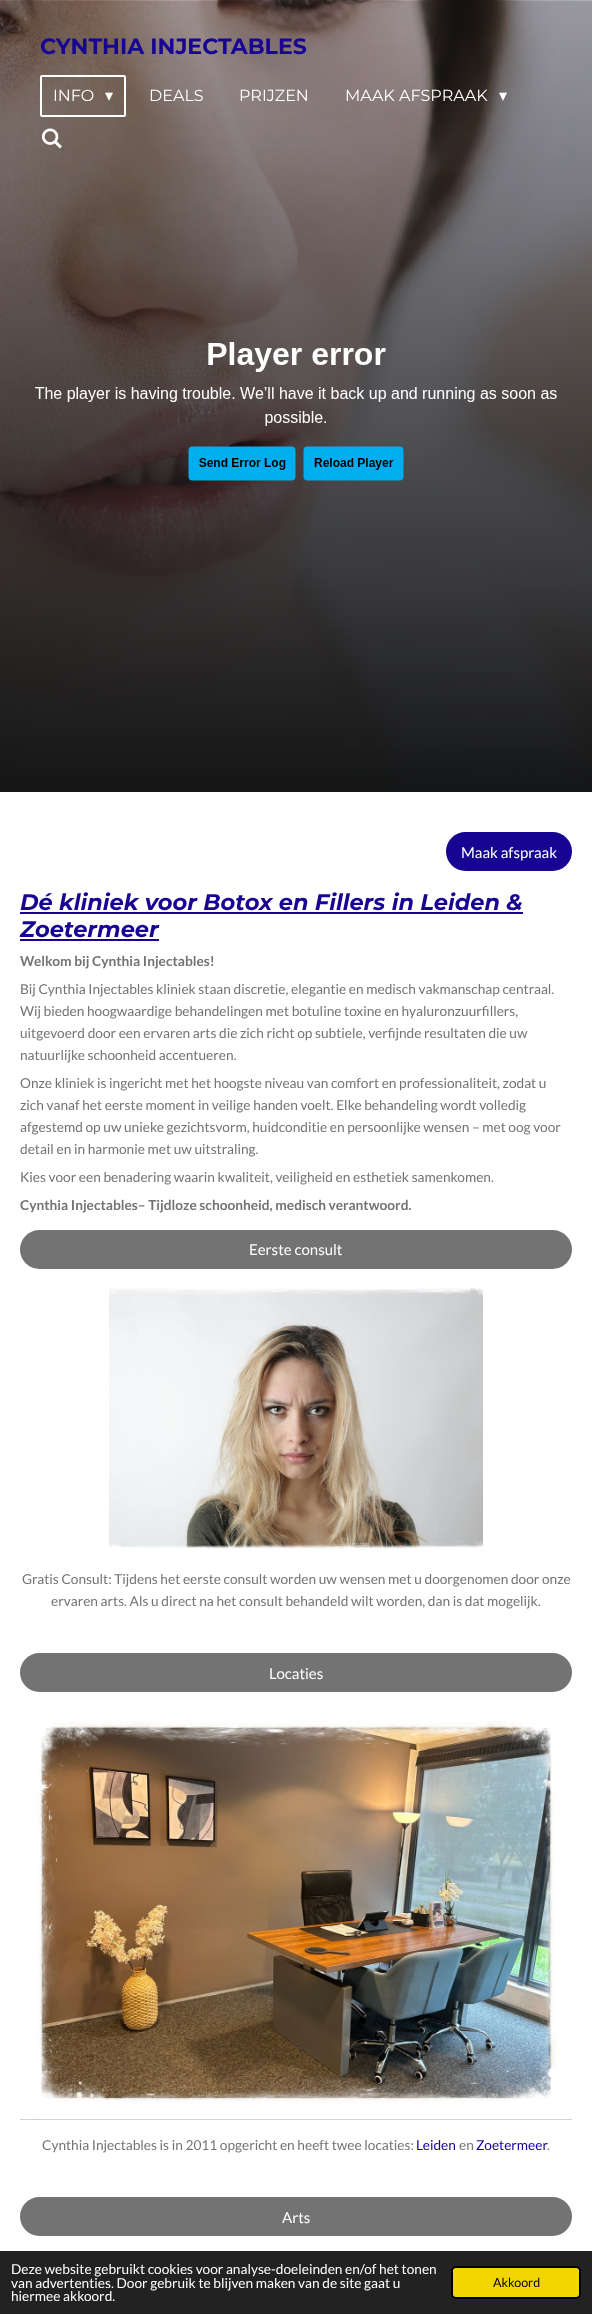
<!DOCTYPE html>
<meta charset="utf-8">
<style>body { margin: 0 } canvas { display: block }</style>
<canvas id="canvas" width="592" height="2314"></canvas>
<script type="module">
  const canvas = document.getElementById("canvas");
  const ctx = canvas.getContext("2d");
  ctx.miterLimit = 4;
  ctx.fontKerning = "normal";
  async function loadImage(src) {
    const img = new Image();
    img.src = src;
    await img.decode();
    return img;
  }

  ctx.fillStyle = "#ffffff";
  ctx.fillRect(0, 0, 592, 2314);
  ctx.drawImage(await loadImage("img1.png"), 0, 0, 592, 786);
  ctx.drawImage(await loadImage("img2.png"), 0, 0, 592, 792);
  ctx.font = "bold 22.1px Montserrat";
  ctx.fillStyle = "#180492";
  ctx.fillText("CYNTHIA INJECTABLES", 40, 54);
  ctx.beginPath();
  ctx.roundRect(41, 76, 84, 40, 1);
  ctx.strokeStyle = "#ffffff";
  ctx.lineWidth = 2;
  ctx.stroke();
  ctx.font = "16px Montserrat";
  ctx.fillStyle = "#ffffff";
  ctx.fillText("INFO", 53, 101);
  ctx.font = "16px DejaVu Sans";
  ctx.fillText("▾", 105, 101);
  ctx.font = "16px Montserrat";
  ctx.fillText("DEALS", 149, 101);
  ctx.fillText("PRIJZEN", 239, 101);
  ctx.fillText("MAAK AFSPRAAK", 345, 101);
  ctx.font = "16px DejaVu Sans";
  ctx.fillText("▾", 499, 101);
  ctx.drawImage(await loadImage("img3.png"), 42, 128, 20, 21);
  ctx.fillStyle = "#180492";
  ctx.beginPath();
  ctx.roundRect(446, 832, 126, 39, 19.5);
  ctx.fill();
  ctx.font = "15px Lato";
  ctx.fillStyle = "#ffffff";
  ctx.fillText("Maak afspraak", 461, 858);
  ctx.font = "italic bold 22.5px Montserrat";
  ctx.fillStyle = "#180492";
  ctx.fillText("Dé kliniek voor Botox en Fillers in Leiden &", 20, 910);
  ctx.fillRect(20, 912, 503, 2);
  ctx.fillText("Zoetermeer", 20, 937);
  ctx.fillRect(20, 939, 139, 2);
  ctx.font = "bold 13.7px Lato";
  ctx.fillStyle = "#737373";
  ctx.fillText("Welkom bij Cynthia Injectables!", 20, 966);
  ctx.font = "13.7px Lato";
  ctx.fillText("Bij Cynthia Injectables kliniek staan discretie, elegantie en medisch vakmanschap centraal.", 20, 994);
  ctx.fillText("Wij bieden hoogwaardige behandelingen met botuline toxine en hyaluronzuurfillers,", 20, 1016);
  ctx.fillText("uitgevoerd door een ervaren arts die zich richt op subtiele, verfijnde resultaten die uw", 20, 1038);
  ctx.fillText("natuurlijke schoonheid accentueren.", 20, 1060);
  ctx.fillText("Onze kliniek is ingericht met het hoogste niveau van comfort en professionaliteit, zodat u", 20, 1088);
  ctx.fillText("zich vanaf het eerste moment in veilige handen voelt. Elke behandeling wordt volledig", 20, 1110);
  ctx.fillText("afgestemd op uw unieke gezichtsvorm, huidconditie en persoonlijke wensen – met oog voor", 20, 1132);
  ctx.fillText("detail en in harmonie met uw uitstraling.", 20, 1154);
  ctx.fillText("Kies voor een benadering waarin kwaliteit, veiligheid en esthetiek samenkomen.", 20, 1182);
  ctx.font = "bold 13.7px Lato";
  ctx.fillText("Cynthia Injectables– Tijdloze schoonheid, medisch verantwoord.", 20, 1210);
  ctx.beginPath();
  ctx.roundRect(20, 1230, 552, 39, 19.5);
  ctx.fill();
  ctx.font = "15px Lato";
  ctx.fillStyle = "#ffffff";
  ctx.fillText("Eerste consult", 249, 1255);
  ctx.drawImage(await loadImage("img4.png"), 109, 1288, 374, 261);
  ctx.font = "13.7px Lato";
  ctx.fillStyle = "#737373";
  ctx.fillText("Gratis Consult: Tijdens het eerste consult worden uw wensen met u doorgenomen door onze", 22, 1584);
  ctx.fillText("ervaren arts. Als u direct na het consult behandeld wilt worden, dan is dat mogelijk.", 51, 1606);
  ctx.beginPath();
  ctx.roundRect(20, 1653, 552, 39, 19.5);
  ctx.fill();
  ctx.font = "15px Lato";
  ctx.fillStyle = "#ffffff";
  ctx.fillText("Locaties", 269, 1679);
  ctx.drawImage(await loadImage("img5.png"), 20, 1721, 552, 399);
  ctx.font = "13.7px Lato";
  ctx.fillStyle = "#737373";
  ctx.fillText("Cynthia Injectables is in 2011 opgericht en heeft twee locaties:", 42, 2150);
  ctx.fillStyle = "#180492";
  ctx.fillText("Leiden", 416, 2150);
  ctx.fillStyle = "#737373";
  ctx.fillText("en", 459, 2150);
  ctx.fillStyle = "#180492";
  ctx.fillText("Zoetermeer", 476, 2150);
  ctx.fillStyle = "#737373";
  ctx.fillText(".", 547, 2150);
  ctx.beginPath();
  ctx.roundRect(20, 2197, 552, 39, 19.5);
  ctx.fill();
  ctx.font = "15px Lato";
  ctx.fillStyle = "#ffffff";
  ctx.fillText("Arts", 282, 2223);
  ctx.fillStyle = "#222222";
  ctx.fillRect(0, 2251, 592, 63);
  ctx.font = "13.7px Lato";
  ctx.fillStyle = "#ffffff";
  ctx.fillText("Deze website gebruikt cookies voor analyse-doeleinden en/of het tonen", 11, 2274);
  ctx.fillText("van advertenties. Door gebruik te blijven maken van de site gaat u", 11, 2288);
  ctx.fillText("hiermee akkoord.", 11, 2301);
  ctx.fillStyle = "#f1d600";
  ctx.beginPath();
  ctx.roundRect(452, 2267, 128, 31, 4);
  ctx.fill();
  ctx.strokeStyle = "#000000";
  ctx.stroke();
  ctx.font = "12.5px Lato";
  ctx.fillStyle = "#000000";
  ctx.fillText("Akkoord", 493, 2287);
</script>
